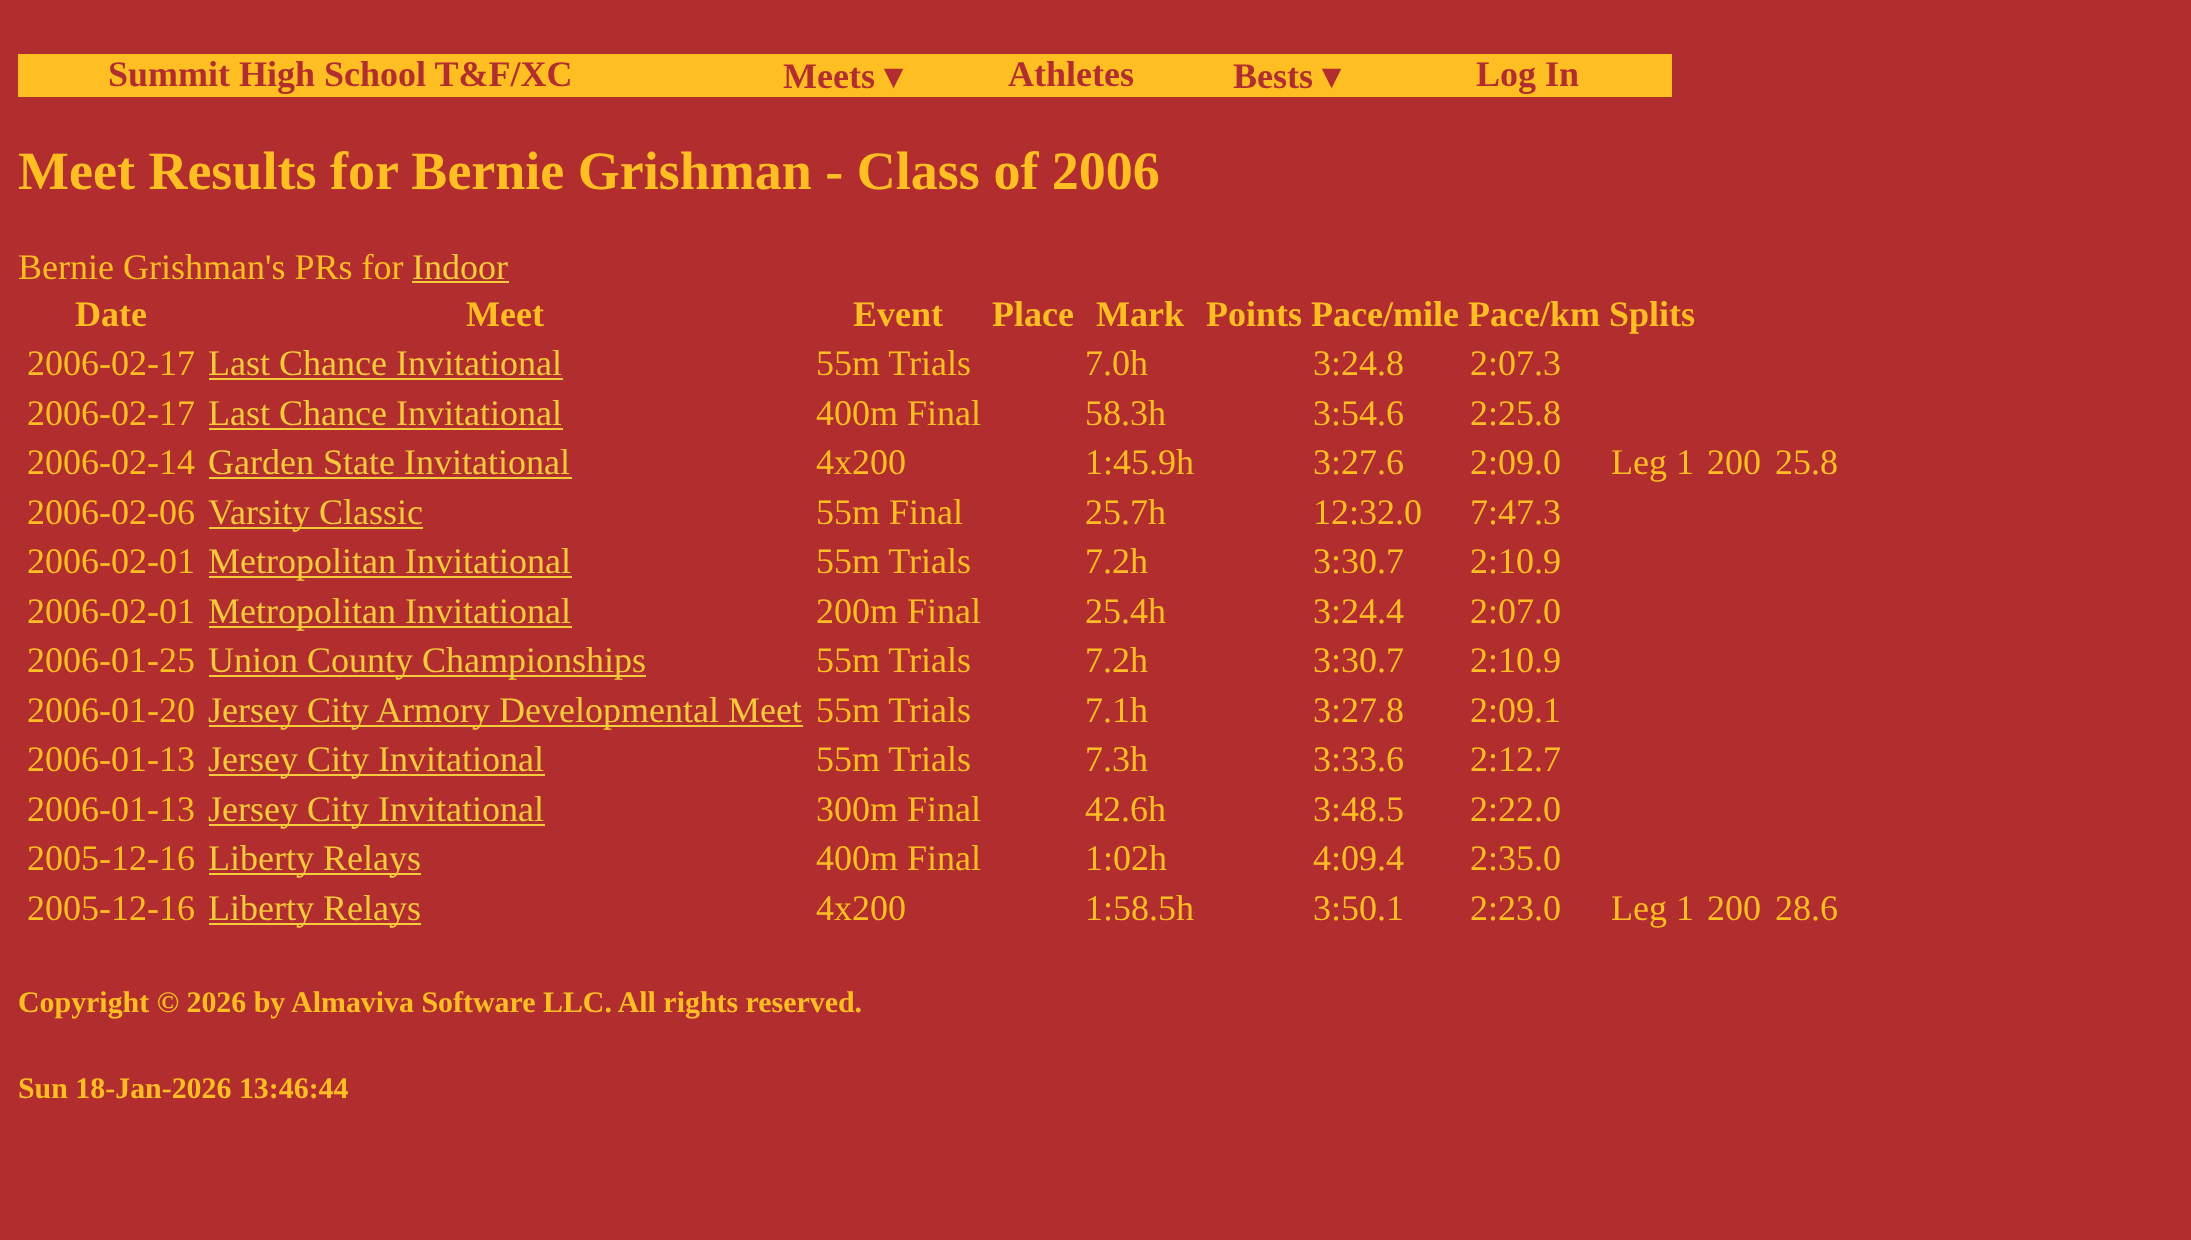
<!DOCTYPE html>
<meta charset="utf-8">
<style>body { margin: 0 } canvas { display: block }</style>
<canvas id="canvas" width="2191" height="1240"></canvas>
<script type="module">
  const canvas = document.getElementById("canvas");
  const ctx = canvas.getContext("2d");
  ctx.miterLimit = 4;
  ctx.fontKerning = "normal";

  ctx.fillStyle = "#b22e2e";
  ctx.fillRect(0, 0, 2191, 1240);
  ctx.fillStyle = "#ffbf23";
  ctx.fillRect(18, 54, 1654, 43);
  ctx.font = "bold 36px Liberation Serif";
  ctx.fillStyle = "#b22e2e";
  ctx.fillText("Summit High School T&F/XC", 108, 86);
  ctx.fillText("Meets", 783, 88);
  ctx.font = "bold 36px DejaVu Sans";
  ctx.fillText("▾", 884, 88);
  ctx.font = "bold 36px Liberation Serif";
  ctx.fillText("Athletes", 1008, 86);
  ctx.fillText("Bests", 1233, 88);
  ctx.font = "bold 36px DejaVu Sans";
  ctx.fillText("▾", 1322, 88);
  ctx.font = "bold 36px Liberation Serif";
  ctx.fillText("Log In", 1476, 86);
  ctx.font = "bold 54px Liberation Serif";
  ctx.fillStyle = "#ffbf23";
  ctx.fillText("Meet Results for Bernie Grishman - Class of 2006", 18, 189);
  ctx.font = "36px Liberation Serif";
  ctx.fillText("Bernie Grishman's PRs for", 18, 279);
  ctx.fillStyle = "#f5cb3b";
  ctx.fillText("Indoor", 412, 279);
  ctx.fillRect(412, 281, 97, 2);
  ctx.font = "bold 36px Liberation Serif";
  ctx.fillStyle = "#ffbf23";
  ctx.fillText("Date", 75, 326);
  ctx.fillText("Meet", 466, 326);
  ctx.fillText("Event", 853, 326);
  ctx.fillText("Place", 992, 326);
  ctx.fillText("Mark", 1096, 326);
  ctx.fillText("Points Pace/mile Pace/km", 1206, 326);
  ctx.fillText("Splits", 1609, 326);
  ctx.font = "36px Liberation Serif";
  ctx.fillText("2006-02-17", 27, 375);
  ctx.fillStyle = "#f5cb3b";
  ctx.fillText("Last Chance Invitational", 208, 375);
  ctx.fillRect(209, 378, 354, 2);
  ctx.fillStyle = "#ffbf23";
  ctx.fillText("55m Trials", 816, 375);
  ctx.fillText("7.0h", 1085, 375);
  ctx.fillText("3:24.8", 1313, 375);
  ctx.fillText("2:07.3", 1470, 375);
  ctx.fillText("2006-02-17", 27, 425);
  ctx.fillStyle = "#f5cb3b";
  ctx.fillText("Last Chance Invitational", 208, 425);
  ctx.fillRect(209, 428, 354, 2);
  ctx.fillStyle = "#ffbf23";
  ctx.fillText("400m Final", 816, 425);
  ctx.fillText("58.3h", 1085, 425);
  ctx.fillText("3:54.6", 1313, 425);
  ctx.fillText("2:25.8", 1470, 425);
  ctx.fillText("2006-02-14", 27, 474);
  ctx.fillStyle = "#f5cb3b";
  ctx.fillText("Garden State Invitational", 208, 474);
  ctx.fillRect(209, 477, 363, 2);
  ctx.fillStyle = "#ffbf23";
  ctx.fillText("4x200", 816, 474);
  ctx.fillText("1:45.9h", 1085, 474);
  ctx.fillText("3:27.6", 1313, 474);
  ctx.fillText("2:09.0", 1470, 474);
  ctx.fillText("Leg 1", 1611, 474);
  ctx.fillText("200", 1707, 474);
  ctx.fillText("25.8", 1775, 474);
  ctx.fillText("2006-02-06", 27, 524);
  ctx.fillStyle = "#f5cb3b";
  ctx.fillRect(209, 527, 214, 2);
  ctx.fillText("Varsity Classic", 208, 524);
  ctx.fillStyle = "#ffbf23";
  ctx.fillText("55m Final", 816, 524);
  ctx.fillText("25.7h", 1085, 524);
  ctx.fillText("12:32.0", 1313, 524);
  ctx.fillText("7:47.3", 1470, 524);
  ctx.fillText("2006-02-01", 27, 573);
  ctx.fillStyle = "#f5cb3b";
  ctx.fillRect(209, 576, 363, 2);
  ctx.fillText("Metropolitan Invitational", 208, 573);
  ctx.fillStyle = "#ffbf23";
  ctx.fillText("55m Trials", 816, 573);
  ctx.fillText("7.2h", 1085, 573);
  ctx.fillText("3:30.7", 1313, 573);
  ctx.fillText("2:10.9", 1470, 573);
  ctx.fillText("2006-02-01", 27, 623);
  ctx.fillStyle = "#f5cb3b";
  ctx.fillRect(209, 626, 363, 2);
  ctx.fillText("Metropolitan Invitational", 208, 623);
  ctx.fillStyle = "#ffbf23";
  ctx.fillText("200m Final", 816, 623);
  ctx.fillText("25.4h", 1085, 623);
  ctx.fillText("3:24.4", 1313, 623);
  ctx.fillText("2:07.0", 1470, 623);
  ctx.fillText("2006-01-25", 27, 672);
  ctx.fillStyle = "#f5cb3b";
  ctx.fillRect(209, 675, 437, 2);
  ctx.fillText("Union County Championships", 208, 672);
  ctx.fillStyle = "#ffbf23";
  ctx.fillText("55m Trials", 816, 672);
  ctx.fillText("7.2h", 1085, 672);
  ctx.fillText("3:30.7", 1313, 672);
  ctx.fillText("2:10.9", 1470, 672);
  ctx.fillText("2006-01-20", 27, 722);
  ctx.fillStyle = "#f5cb3b";
  ctx.fillRect(209, 725, 594, 2);
  ctx.fillText("Jersey City Armory Developmental Meet", 208, 722);
  ctx.fillStyle = "#ffbf23";
  ctx.fillText("55m Trials", 816, 722);
  ctx.fillText("7.1h", 1085, 722);
  ctx.fillText("3:27.8", 1313, 722);
  ctx.fillText("2:09.1", 1470, 722);
  ctx.fillText("2006-01-13", 27, 771);
  ctx.fillStyle = "#f5cb3b";
  ctx.fillRect(209, 774, 336, 2);
  ctx.fillText("Jersey City Invitational", 208, 771);
  ctx.fillStyle = "#ffbf23";
  ctx.fillText("55m Trials", 816, 771);
  ctx.fillText("7.3h", 1085, 771);
  ctx.fillText("3:33.6", 1313, 771);
  ctx.fillText("2:12.7", 1470, 771);
  ctx.fillText("2006-01-13", 27, 821);
  ctx.fillStyle = "#f5cb3b";
  ctx.fillRect(209, 824, 336, 2);
  ctx.fillText("Jersey City Invitational", 208, 821);
  ctx.fillStyle = "#ffbf23";
  ctx.fillText("300m Final", 816, 821);
  ctx.fillText("42.6h", 1085, 821);
  ctx.fillText("3:48.5", 1313, 821);
  ctx.fillText("2:22.0", 1470, 821);
  ctx.fillText("2005-12-16", 27, 870);
  ctx.fillStyle = "#f5cb3b";
  ctx.fillRect(209, 873, 212, 2);
  ctx.fillText("Liberty Relays", 208, 870);
  ctx.fillStyle = "#ffbf23";
  ctx.fillText("400m Final", 816, 870);
  ctx.fillText("1:02h", 1085, 870);
  ctx.fillText("4:09.4", 1313, 870);
  ctx.fillText("2:35.0", 1470, 870);
  ctx.fillText("2005-12-16", 27, 920);
  ctx.fillStyle = "#f5cb3b";
  ctx.fillRect(209, 923, 212, 2);
  ctx.fillText("Liberty Relays", 208, 920);
  ctx.fillStyle = "#ffbf23";
  ctx.fillText("4x200", 816, 920);
  ctx.fillText("1:58.5h", 1085, 920);
  ctx.fillText("3:50.1", 1313, 920);
  ctx.fillText("2:23.0", 1470, 920);
  ctx.fillText("Leg 1", 1611, 920);
  ctx.fillText("200", 1707, 920);
  ctx.fillText("28.6", 1775, 920);
  ctx.font = "bold 29.9px Liberation Serif";
  ctx.fillText("Copyright © 2026 by Almaviva Software LLC. All rights reserved.", 18, 1012);
  ctx.fillText("Sun 18-Jan-2026 13:46:44", 18, 1098);
</script>
